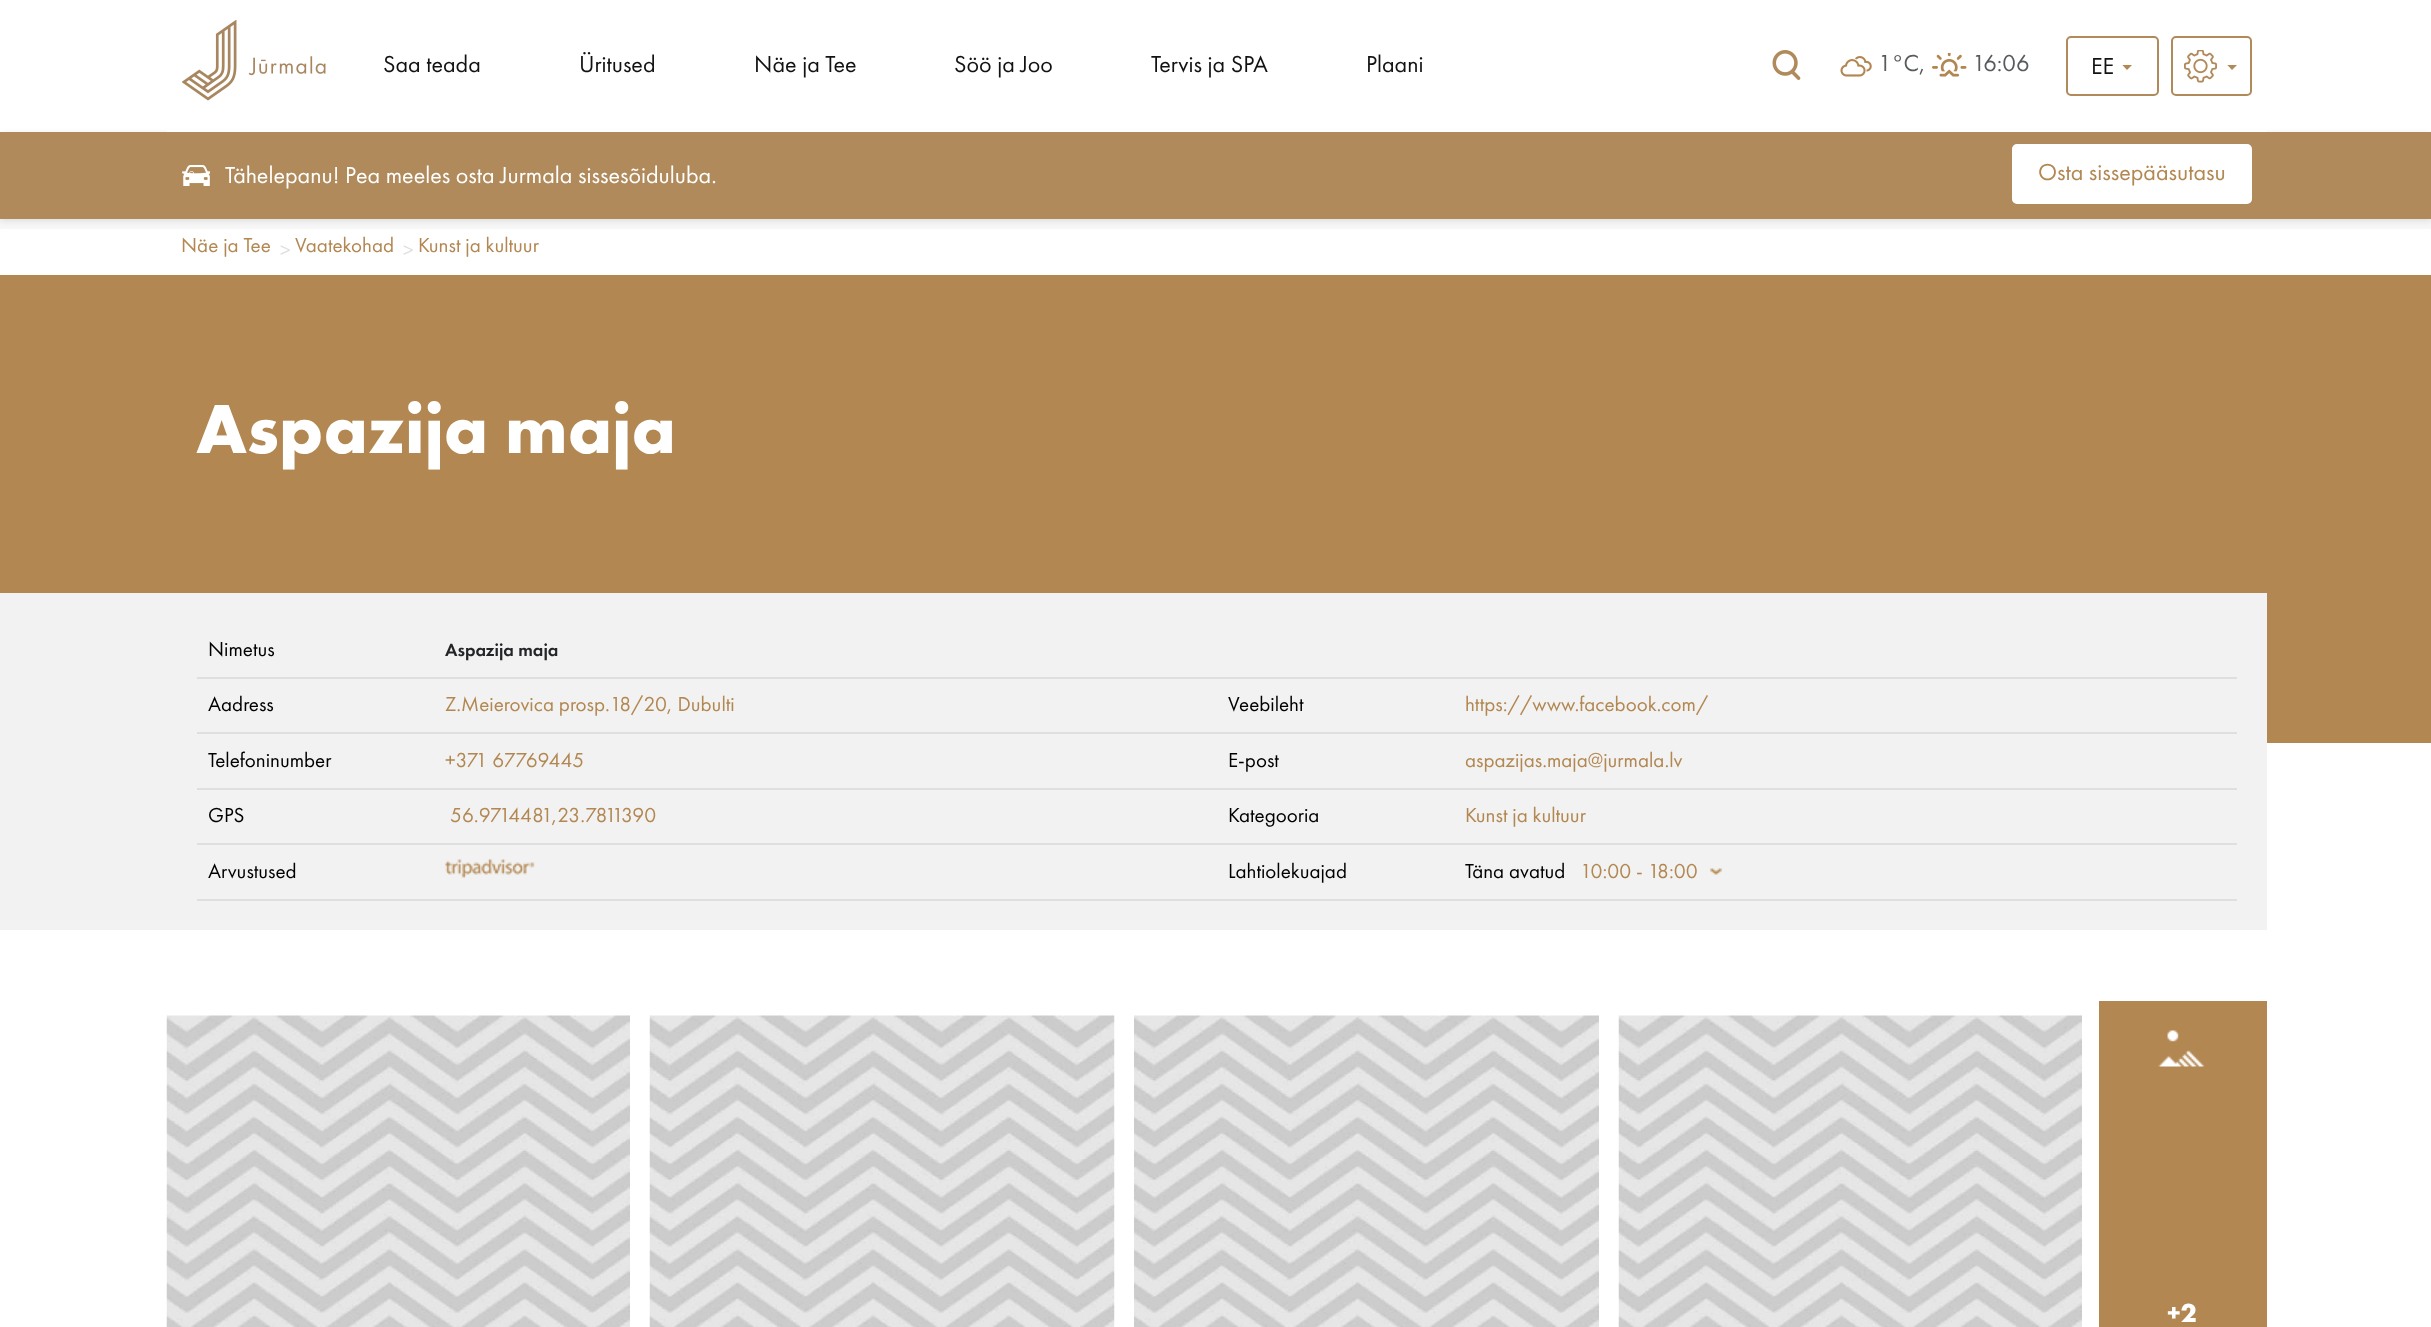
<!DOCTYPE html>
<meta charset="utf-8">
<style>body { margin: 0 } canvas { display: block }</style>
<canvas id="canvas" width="2431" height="1327"></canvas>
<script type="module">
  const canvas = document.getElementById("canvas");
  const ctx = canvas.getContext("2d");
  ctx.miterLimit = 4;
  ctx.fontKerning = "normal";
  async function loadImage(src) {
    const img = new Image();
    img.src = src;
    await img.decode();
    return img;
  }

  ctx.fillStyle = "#ffffff";
  ctx.fillRect(0, 0, 2431, 1327);
  ctx.fillStyle = "rgba(0, 0, 0, 0.1)";
  ctx.filter = "blur(3px)";
  ctx.beginPath();
  ctx.rect(0, 134, 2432, 87);
  ctx.fill();
  ctx.filter = "none";
  ctx.fillStyle = "#ffffff";
  ctx.fillRect(167, 130, 2100, 2);
  ctx.drawImage(await loadImage("img1.png"), 182, 20, 144, 81);
  ctx.font = "24px Futura PT";
  ctx.fillStyle = "#121212";
  ctx.fillText("Saa teada", 383, 72);
  ctx.fillText("Üritused", 579, 72);
  ctx.fillText("Näe ja Tee", 754, 72);
  ctx.fillText("Söö ja Joo", 954, 72);
  ctx.fillText("Tervis ja SPA", 1151, 72);
  ctx.fillText("Plaani", 1366, 72);
  ctx.drawImage(await loadImage("img2.png"), 1772, 50, 29, 30);
  ctx.drawImage(await loadImage("img3.png"), 1840, 56, 32, 21);
  ctx.fillStyle = "#575b5d";
  ctx.fillText("1°C,", 1878, 71);
  ctx.drawImage(await loadImage("img4.png"), 1932, 53, 35, 24);
  ctx.fillText("16:06", 1972, 71);
  ctx.beginPath();
  ctx.roundRect(2067, 37, 91, 58, 4);
  ctx.strokeStyle = "#b08a5b";
  ctx.lineWidth = 2;
  ctx.stroke();
  ctx.fillStyle = "#121212";
  ctx.fillText("EE", 2091, 74);
  ctx.save();
  ctx.beginPath();
  ctx.rect(2121, 65, 12, 6);
  ctx.clip();
  ctx.fillStyle = "#b28751";
  ctx.beginPath();
  ctx.moveTo(2133, 64);
  ctx.lineTo(2127, 70);
  ctx.lineTo(2121, 63.5);
  ctx.closePath();
  ctx.fill();
  ctx.restore();
  ctx.beginPath();
  ctx.roundRect(2172, 37, 79, 58, 4);
  ctx.stroke();
  ctx.drawImage(await loadImage("img5.png"), 2184, 50, 33, 33);
  ctx.save();
  ctx.beginPath();
  ctx.rect(2226, 65, 12, 6);
  ctx.clip();
  ctx.fillStyle = "#b08a5b";
  ctx.beginPath();
  ctx.moveTo(2238, 64);
  ctx.lineTo(2232, 70);
  ctx.lineTo(2226, 63.5);
  ctx.closePath();
  ctx.fill();
  ctx.restore();
  ctx.fillStyle = "#b08a5b";
  ctx.fillRect(0, 132, 2431, 87);
  ctx.drawImage(await loadImage("img6.png"), 182, 165, 28, 21);
  ctx.fillStyle = "#ffffff";
  ctx.fillText("Tähelepanu! Pea meeles osta Jurmala sissesõiduluba.", 225, 183);
  ctx.beginPath();
  ctx.roundRect(2013, 145, 238, 58, 4);
  ctx.fill();
  ctx.strokeStyle = "#ffffff";
  ctx.stroke();
  ctx.fillStyle = "#b28751";
  ctx.fillText("Osta sissepääsutasu", 2038, 180);
  ctx.fillStyle = "rgba(0, 0, 0, 0.03)";
  ctx.fillRect(0, 219, 2431, 10);
  ctx.font = "21px Futura PT";
  ctx.fillStyle = "#b28751";
  ctx.fillText("Näe ja Tee", 181, 252);
  ctx.fillStyle = "#dfe0de";
  ctx.fillText(">", 280, 257);
  ctx.fillStyle = "#b28751";
  ctx.fillText("Vaatekohad", 295, 252);
  ctx.fillStyle = "#dfe0de";
  ctx.fillText(">", 403, 257);
  ctx.fillStyle = "#b28751";
  ctx.fillText("Kunst ja kultuur", 418, 252);
  ctx.fillRect(0, 275, 2431, 468);
  ctx.font = "bold 72px Futura PT";
  ctx.fillStyle = "#ffffff";
  ctx.fillText("Aspazija maja", 196, 453);
  ctx.fillStyle = "#f2f2f2";
  ctx.fillRect(0, 593, 2267, 337);
  ctx.fillStyle = "#dfe0de";
  ctx.fillRect(197, 677, 2040, 2);
  ctx.font = "21px Futura PT";
  ctx.fillStyle = "#000000";
  ctx.fillText("Nimetus", 208, 656);
  ctx.font = "18.5px 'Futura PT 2'";
  ctx.fillStyle = "#242528";
  ctx.fillText("Aspazija maja", 445, 656);
  ctx.fillStyle = "#dfe0de";
  ctx.fillRect(197, 732, 2040, 2);
  ctx.font = "21px Futura PT";
  ctx.fillStyle = "#000000";
  ctx.fillText("Aadress", 208, 711);
  ctx.fillStyle = "#b28751";
  ctx.fillText("Z.Meierovica prosp.18/20, Dubulti", 445, 711);
  ctx.fillStyle = "#000000";
  ctx.fillText("Veebileht", 1228, 711);
  ctx.fillStyle = "#b28751";
  ctx.fillText("https://www.facebook.com/", 1465, 711);
  ctx.fillStyle = "#dfe0de";
  ctx.fillRect(197, 788, 2040, 2);
  ctx.fillStyle = "#000000";
  ctx.fillText("Telefoninumber", 208, 767);
  ctx.fillStyle = "#b28751";
  ctx.fillText("+371 67769445", 445, 767);
  ctx.fillStyle = "#000000";
  ctx.fillText("E-post", 1228, 767);
  ctx.fillStyle = "#b28751";
  ctx.fillText("aspazijas.maja@jurmala.lv", 1465, 767);
  ctx.fillStyle = "#dfe0de";
  ctx.fillRect(197, 843, 2040, 2);
  ctx.fillStyle = "#000000";
  ctx.fillText("GPS", 208, 822);
  ctx.fillStyle = "#b28751";
  ctx.fillText("56.9714481,23.7811390", 450, 822);
  ctx.fillStyle = "#000000";
  ctx.fillText("Kategooria", 1228, 822);
  ctx.fillStyle = "#b28751";
  ctx.fillText("Kunst ja kultuur", 1465, 822);
  ctx.fillStyle = "#dfe0de";
  ctx.fillRect(197, 899, 2040, 2);
  ctx.fillStyle = "#000000";
  ctx.fillText("Arvustused", 208, 878);
  ctx.drawImage(await loadImage("img7.png"), 445, 859, 90, 19);
  ctx.fillText("Lahtiolekuajad", 1228, 878);
  ctx.fillText("Täna avatud", 1465, 878);
  ctx.fillStyle = "#b28751";
  ctx.fillText("10:00 - 18:00", 1580, 878);
  ctx.drawImage(await loadImage("img8.png"), 1710, 868, 12, 7);
  ctx.drawImage(await loadImage("img9.png"), 166, 1015, 464, 312);
  ctx.drawImage(await loadImage("img10.png"), 649, 1015, 466, 312);
  ctx.drawImage(await loadImage("img11.png"), 1134, 1015, 465, 312);
  ctx.drawImage(await loadImage("img9.png"), 1618, 1015, 464, 312);
  ctx.fillRect(2099, 1001, 168, 326);
  ctx.drawImage(await loadImage("img12.png"), 2158, 1030, 47, 37);
  ctx.font = "bold 27px Futura PT";
  ctx.fillStyle = "#ffffff";
  ctx.fillText("+2", 2167, 1322);
</script>
